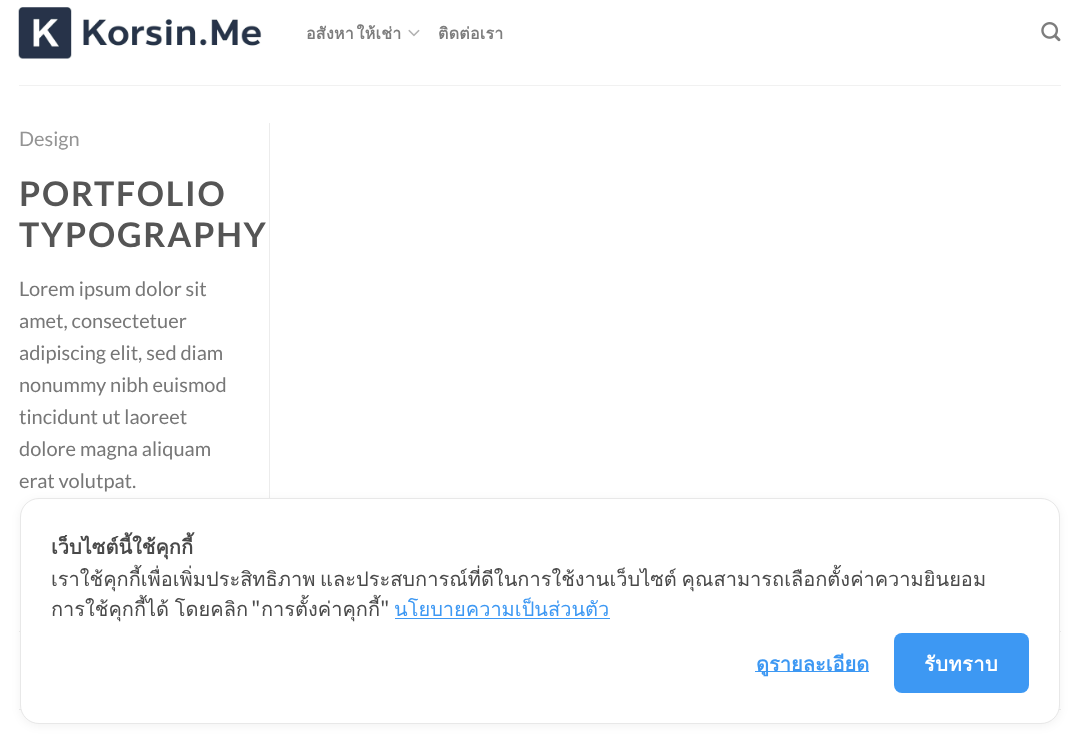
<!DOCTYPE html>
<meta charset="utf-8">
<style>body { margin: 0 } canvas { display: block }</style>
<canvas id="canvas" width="1080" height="743"></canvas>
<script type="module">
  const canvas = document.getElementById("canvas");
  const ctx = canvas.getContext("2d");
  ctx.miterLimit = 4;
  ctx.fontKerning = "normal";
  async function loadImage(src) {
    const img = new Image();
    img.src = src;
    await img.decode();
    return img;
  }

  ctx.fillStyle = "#ffffff";
  ctx.fillRect(0, 0, 1080, 743);
  ctx.drawImage(await loadImage("img1.png"), 18, 7, 244, 52);
  ctx.letterSpacing = "0.25px";
  ctx.wordSpacing = "-3px";
  ctx.font = "bold 16px Loma";
  ctx.fillStyle = "#7d7d7d";
  ctx.fillText("อสังหา ให้เช่า", 306, 39);
  ctx.drawImage(await loadImage("img2.png"), 408, 29, 12, 8);
  ctx.wordSpacing = "0px";
  ctx.fillText("ติดต่อเรา", 438, 39);
  ctx.drawImage(await loadImage("img3.png"), 1041, 22, 20, 20);
  ctx.fillStyle = "#f1f1f1";
  ctx.fillRect(19, 85, 1042, 1);
  ctx.fillStyle = "#ececec";
  ctx.fillRect(269, 123, 1, 375);
  ctx.letterSpacing = "0px";
  ctx.font = "20px Lato";
  ctx.fillStyle = "#949494";
  ctx.fillText("Design", 19, 146);
  ctx.letterSpacing = "1.75px";
  ctx.font = "bold 34px Lato";
  ctx.fillStyle = "#555555";
  ctx.fillText("PORTFOLIO", 19, 206);
  ctx.fillText("TYPOGRAPHY", 19, 247);
  ctx.letterSpacing = "0px";
  ctx.font = "20px Lato";
  ctx.fillStyle = "#777777";
  ctx.fillText("Lorem ipsum dolor sit", 19, 296);
  ctx.fillText("amet, consectetuer", 19, 328);
  ctx.fillText("adipiscing elit, sed diam", 19, 360);
  ctx.fillText("nonummy nibh euismod", 19, 392);
  ctx.fillText("tincidunt ut laoreet", 19, 424);
  ctx.fillText("dolore magna aliquam", 19, 456);
  ctx.fillText("erat volutpat.", 19, 488);
  ctx.fillStyle = "#ececec";
  ctx.fillRect(19, 631, 1042, 1);
  ctx.fillRect(19, 709, 1042, 1);
  ctx.fillStyle = "rgba(0, 0, 0, 0.05)";
  ctx.filter = "blur(5px)";
  ctx.beginPath();
  ctx.roundRect(20, 500, 1040, 226, 19);
  ctx.fill();
  ctx.filter = "none";
  ctx.fillStyle = "#ffffff";
  ctx.beginPath();
  ctx.roundRect(20.5, 498.5, 1039, 225, 18.5);
  ctx.fill();
  ctx.strokeStyle = "#e8e8e8";
  ctx.stroke();
  ctx.font = "bold 20px Loma";
  ctx.fillStyle = "#4a4a4a";
  ctx.fillText("เว็บไซต์นี้ใช้คุกกี้", 51, 554);
  ctx.wordSpacing = "-2px";
  ctx.font = "20px Loma";
  ctx.fillText("เราใช้คุกกี้เพื่อเพิ่มประสิทธิภาพ และประสบการณ์ที่ดีในการใช้งานเว็บไซต์ คุณสามารถเลือกตั้งค่าความยินยอม", 51, 586);
  ctx.wordSpacing = "-1px";
  ctx.fillText("การใช้คุกกี้ได้ โดยคลิก", 51, 616);
  ctx.wordSpacing = "0px";
  ctx.font = "20px Noto Sans JP";
  ctx.fillText("\"", 251, 616);
  ctx.font = "20px Loma";
  ctx.fillText("การตั้งค่าคุกกี้", 261, 616);
  ctx.font = "20px Noto Sans JP";
  ctx.fillText("\"", 380, 616);
  ctx.font = "20px Loma";
  ctx.fillStyle = "#3d98f3";
  ctx.fillText("นโยบายความเป็นส่วนตัว", 394, 616);
  ctx.fillRect(395, 618, 215, 1);
  ctx.fillRect(755, 671, 114, 1);
  ctx.font = "bold 20px Loma";
  ctx.fillText("ดูรายละเอียด", 756, 671);
  ctx.beginPath();
  ctx.roundRect(894, 633, 135, 60, 8);
  ctx.fill();
  ctx.letterSpacing = "0.5px";
  ctx.fillStyle = "#ffffff";
  ctx.fillText("รับทราบ", 924, 671);
</script>
